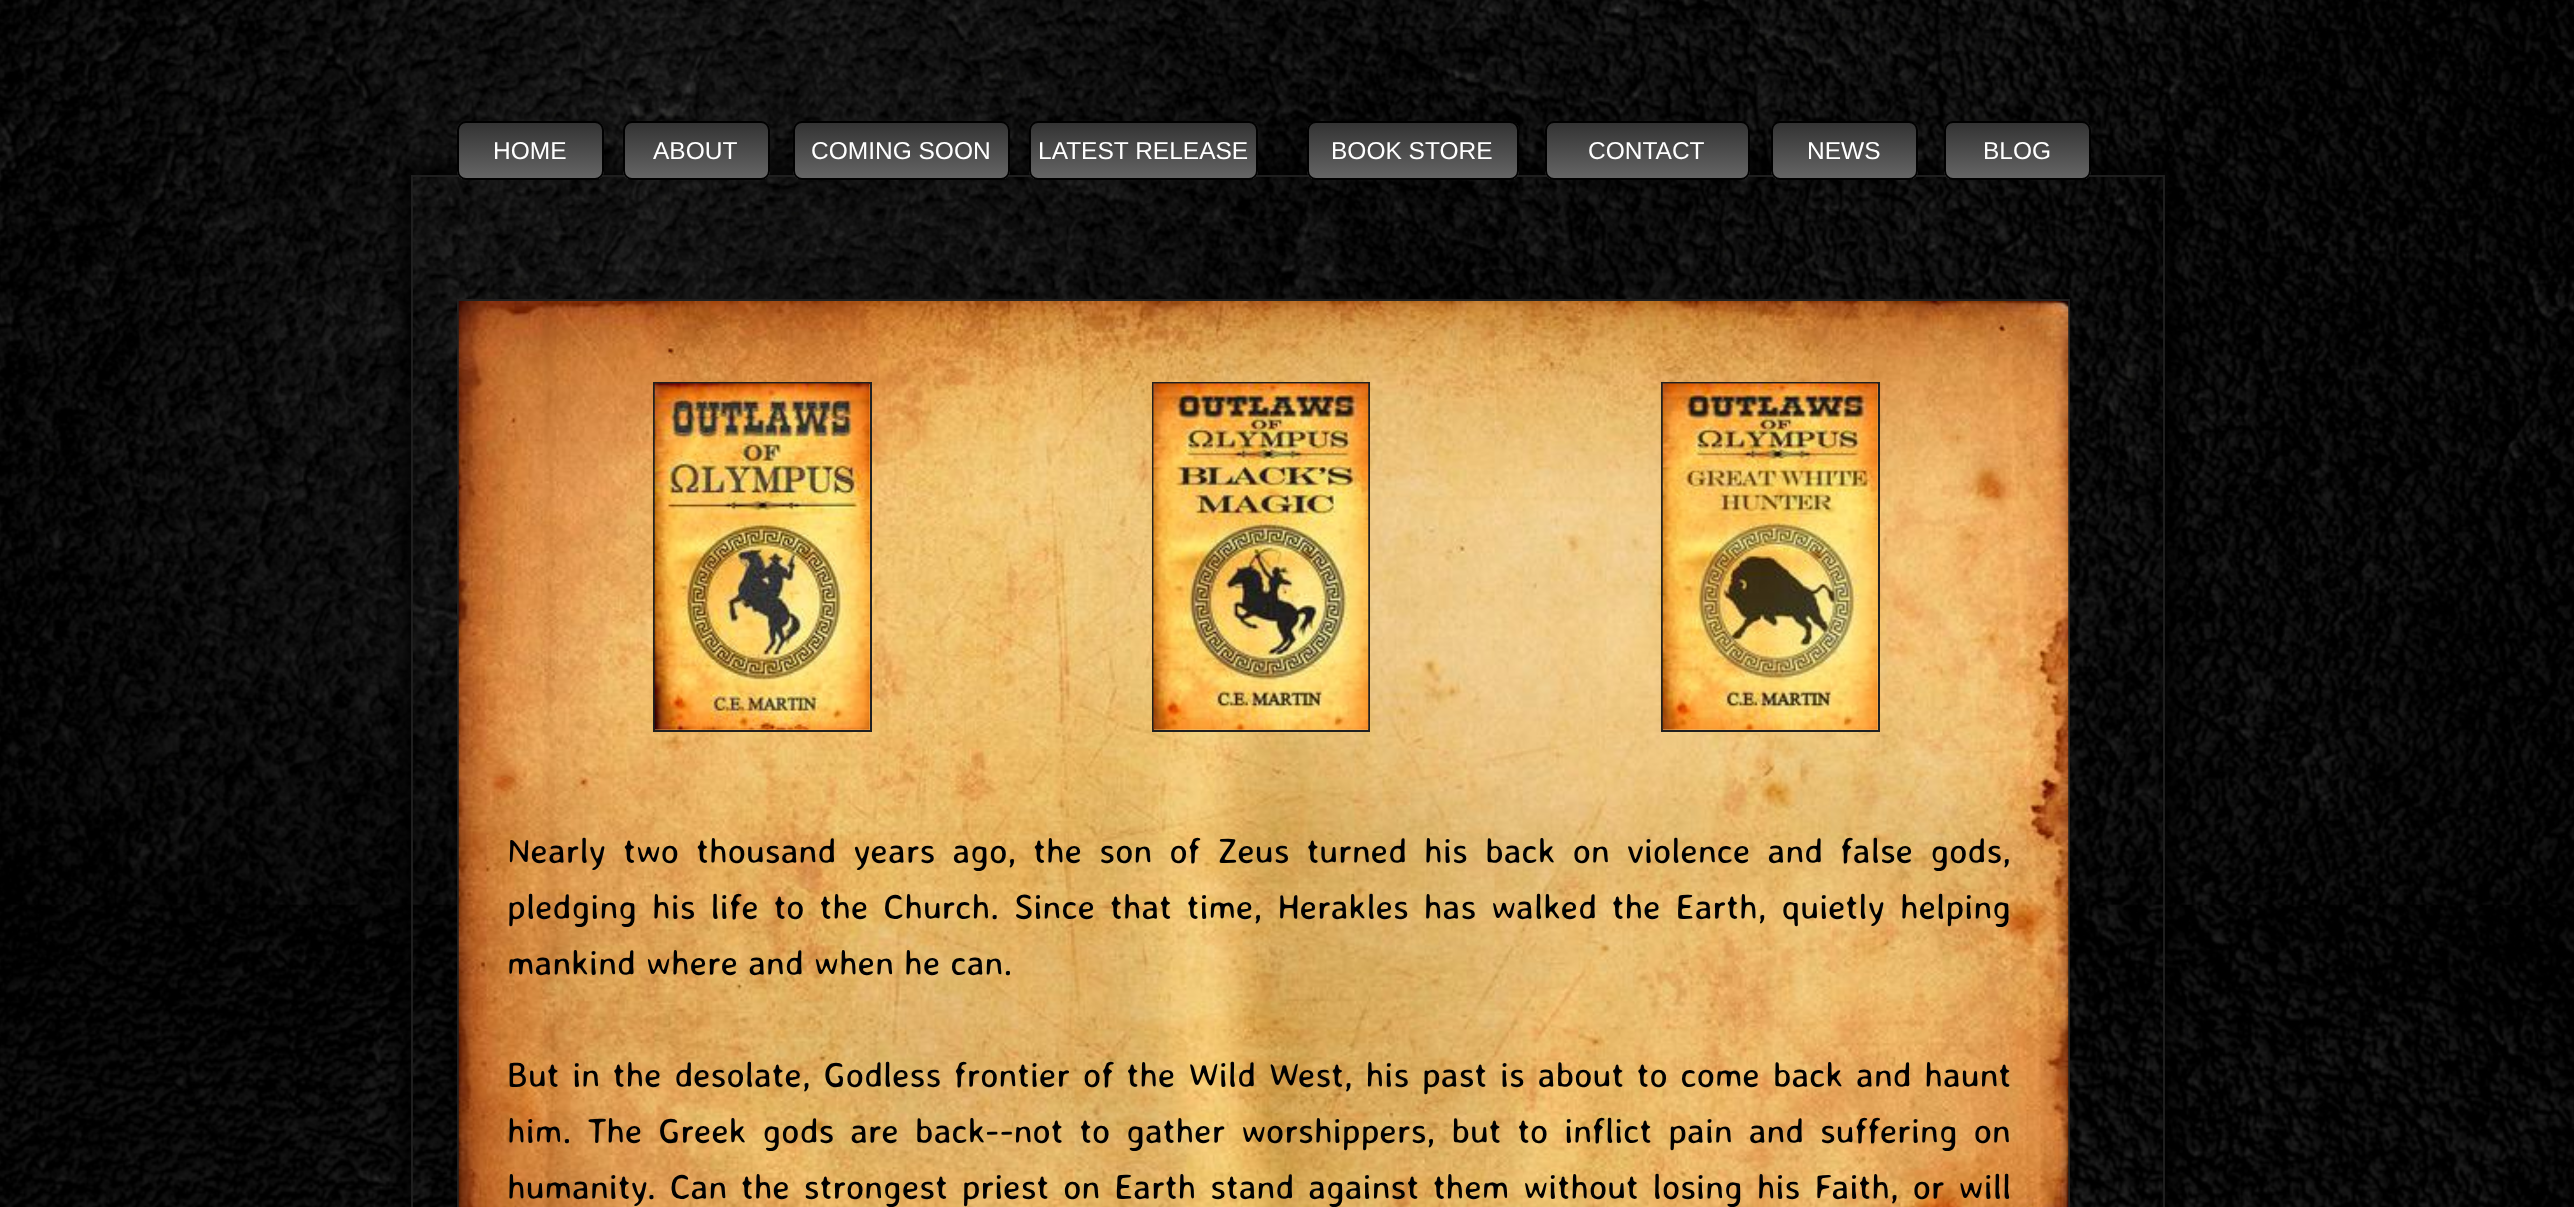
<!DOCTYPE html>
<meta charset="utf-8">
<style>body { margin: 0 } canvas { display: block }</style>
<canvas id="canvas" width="2574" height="1207"></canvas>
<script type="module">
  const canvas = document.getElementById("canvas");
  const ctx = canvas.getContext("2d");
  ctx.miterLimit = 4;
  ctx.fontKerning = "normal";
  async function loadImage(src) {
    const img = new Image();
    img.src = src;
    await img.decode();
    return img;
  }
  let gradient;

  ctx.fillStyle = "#ffffff";
  ctx.fillRect(0, 0, 2574, 1207);
  ctx.drawImage(await loadImage("img1.png"), 0, 0, 2574, 1207);
  ctx.save();
  ctx.beginPath();
  ctx.moveTo(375, 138);
  ctx.lineTo(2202, 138);
  ctx.lineTo(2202, 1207);
  ctx.lineTo(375, 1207);
  ctx.closePath();
  ctx.moveTo(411, 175);
  ctx.lineTo(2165, 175);
  ctx.lineTo(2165, 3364);
  ctx.lineTo(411, 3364);
  ctx.closePath();
  ctx.clip("evenodd");
  ctx.fillStyle = "rgba(0, 0, 0, 0.8)";
  ctx.filter = "blur(9px)";
  ctx.beginPath();
  ctx.rect(403, 166, 1771, 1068);
  ctx.fill();
  ctx.filter = "none";
  ctx.restore();
  ctx.strokeStyle = "#1f1f1f";
  ctx.lineWidth = 2;
  ctx.strokeRect(412, 176, 1752, 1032);
  ctx.save();
  ctx.beginPath();
  ctx.roundRect(457, 121, 147, 59, 9);
  ctx.clip();
  gradient = ctx.createLinearGradient(530, 123, 530, 179);
  gradient.addColorStop(0, "#333333");
  gradient.addColorStop(1, "#666666");
  ctx.fillStyle = gradient;
  ctx.fillRect(457, 123, 147, 56);
  ctx.restore();
  ctx.beginPath();
  ctx.roundRect(458, 122, 145, 57, 8);
  ctx.strokeStyle = "#000000";
  ctx.stroke();
  ctx.font = "24.5px Liberation Sans";
  ctx.fillText("HOME", 493, 159);
  ctx.save();
  ctx.beginPath();
  ctx.roundRect(623, 121, 147, 59, 9);
  ctx.clip();
  gradient = ctx.createLinearGradient(697, 123, 697, 179);
  gradient.addColorStop(0, "#333333");
  gradient.addColorStop(1, "#666666");
  ctx.fillStyle = gradient;
  ctx.fillRect(623, 123, 147, 56);
  ctx.restore();
  ctx.beginPath();
  ctx.roundRect(624, 122, 145, 57, 8);
  ctx.stroke();
  ctx.fillText("ABOUT", 653, 159);
  ctx.save();
  ctx.beginPath();
  ctx.roundRect(793, 121, 217, 59, 9);
  ctx.clip();
  gradient = ctx.createLinearGradient(901, 123, 901, 179);
  gradient.addColorStop(0, "#333333");
  gradient.addColorStop(1, "#666666");
  ctx.fillStyle = gradient;
  ctx.fillRect(793, 123, 217, 56);
  ctx.restore();
  ctx.beginPath();
  ctx.roundRect(794, 122, 215, 57, 8);
  ctx.stroke();
  ctx.fillText("COMING SOON", 811, 159);
  ctx.save();
  ctx.beginPath();
  ctx.roundRect(1029, 121, 229, 59, 9);
  ctx.clip();
  gradient = ctx.createLinearGradient(1144, 123, 1144, 179);
  gradient.addColorStop(0, "#333333");
  gradient.addColorStop(1, "#666666");
  ctx.fillStyle = gradient;
  ctx.fillRect(1029, 123, 229, 56);
  ctx.restore();
  ctx.beginPath();
  ctx.roundRect(1030, 122, 227, 57, 8);
  ctx.stroke();
  ctx.fillText("LATEST RELEASE", 1038, 159);
  ctx.save();
  ctx.beginPath();
  ctx.roundRect(1307, 121, 212, 59, 9);
  ctx.clip();
  gradient = ctx.createLinearGradient(1413, 123, 1413, 179);
  gradient.addColorStop(0, "#333333");
  gradient.addColorStop(1, "#666666");
  ctx.fillStyle = gradient;
  ctx.fillRect(1307, 123, 212, 56);
  ctx.restore();
  ctx.beginPath();
  ctx.roundRect(1308, 122, 210, 57, 8);
  ctx.stroke();
  ctx.fillText("BOOK STORE", 1331, 159);
  ctx.save();
  ctx.beginPath();
  ctx.roundRect(1545, 121, 205, 59, 9);
  ctx.clip();
  gradient = ctx.createLinearGradient(1648, 123, 1648, 179);
  gradient.addColorStop(0, "#333333");
  gradient.addColorStop(1, "#666666");
  ctx.fillStyle = gradient;
  ctx.fillRect(1545, 123, 205, 56);
  ctx.restore();
  ctx.beginPath();
  ctx.roundRect(1546, 122, 203, 57, 8);
  ctx.stroke();
  ctx.fillText("CONTACT", 1588, 159);
  ctx.save();
  ctx.beginPath();
  ctx.roundRect(1771, 121, 147, 59, 9);
  ctx.clip();
  gradient = ctx.createLinearGradient(1845, 123, 1845, 179);
  gradient.addColorStop(0, "#333333");
  gradient.addColorStop(1, "#666666");
  ctx.fillStyle = gradient;
  ctx.fillRect(1771, 123, 147, 56);
  ctx.restore();
  ctx.beginPath();
  ctx.roundRect(1772, 122, 145, 57, 8);
  ctx.stroke();
  ctx.fillText("NEWS", 1807, 159);
  ctx.save();
  ctx.beginPath();
  ctx.roundRect(1944, 121, 147, 59, 9);
  ctx.clip();
  gradient = ctx.createLinearGradient(2018, 123, 2018, 179);
  gradient.addColorStop(0, "#333333");
  gradient.addColorStop(1, "#666666");
  ctx.fillStyle = gradient;
  ctx.fillRect(1944, 123, 147, 56);
  ctx.restore();
  ctx.beginPath();
  ctx.roundRect(1945, 122, 145, 57, 8);
  ctx.stroke();
  ctx.fillText("BLOG", 1983, 159);
  ctx.strokeStyle = "#1f1f1f";
  ctx.strokeRect(458, 300, 1611, 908);
  ctx.drawImage(await loadImage("img2.png"), 458, 301, 1611, 906);
  ctx.strokeRect(654, 383, 217, 348);
  ctx.drawImage(await loadImage("img3.png"), 654, 383, 216, 347);
  ctx.strokeRect(1153, 383, 216, 348);
  ctx.drawImage(await loadImage("img4.png"), 1153, 383, 216, 347);
  ctx.strokeRect(1662, 383, 217, 348);
  ctx.drawImage(await loadImage("img5.png"), 1662, 383, 216, 347);
  ctx.wordSpacing = "7px";
  ctx.font = "35px Averia Sans Libre";
  ctx.fillStyle = "#000000";
  ctx.fillText("Nearly two thousand years ago, the son of Zeus turned his back on violence and false gods,", 507, 863);
  ctx.wordSpacing = "4.75px";
  ctx.fillText("pledging his life to the Church. Since that time, Herakles has walked the Earth, quietly helping", 507, 919);
  ctx.wordSpacing = "0px";
  ctx.fillText("mankind where and when he can.", 507, 975);
  ctx.wordSpacing = "2.6px";
  ctx.fillText("But in the desolate, Godless frontier of the Wild West, his past is about to come back and haunt", 507, 1087);
  ctx.wordSpacing = "5.75px";
  ctx.fillText("him. The Greek gods are back--not to gather worshippers, but to inflict pain and suffering on", 507, 1143);
  ctx.wordSpacing = "3.75px";
  ctx.fillText("humanity. Can the strongest priest on Earth stand against them without losing his Faith, or will", 507, 1199);
</script>
